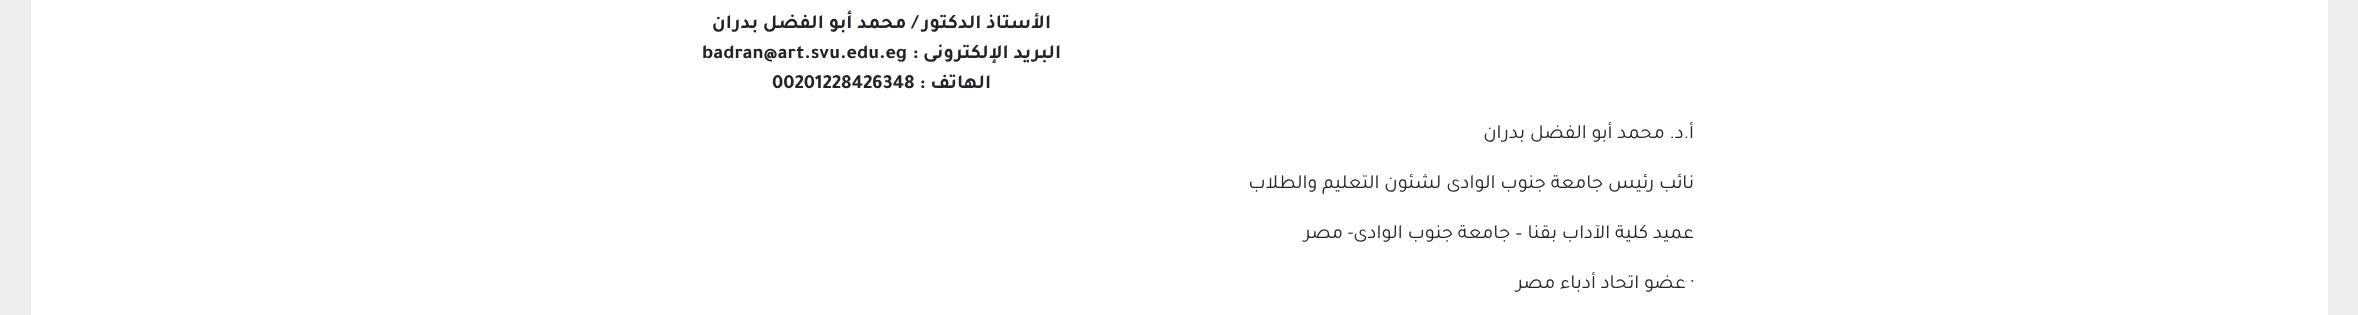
<!DOCTYPE html>
<meta charset="utf-8">
<style>body { margin: 0 } canvas { display: block }</style>
<canvas id="canvas" width="2358" height="315"></canvas>
<script type="module">
  const canvas = document.getElementById("canvas");
  const ctx = canvas.getContext("2d");
  ctx.miterLimit = 4;
  ctx.fontKerning = "normal";

  ctx.fillStyle = "#eeeeee";
  ctx.fillRect(0, 0, 2358, 315);
  ctx.fillStyle = "#ffffff";
  ctx.fillRect(31, 0, 2297, 315);
  ctx.direction = "rtl";
  ctx.font = "bold 20px Tajawal";
  ctx.fillStyle = "#212529";
  ctx.fillText("الأستاذ الدكتور / محمد أبو الفضل بدران", 1051, 28);
  ctx.fillText("البريد الإلكترونى :", 1061, 58);
  ctx.direction = "ltr";
  ctx.fillText("badran@art.svu.edu.eg", 702, 58);
  ctx.direction = "rtl";
  ctx.fillText("الهاتف :", 991, 88);
  ctx.direction = "ltr";
  ctx.fillText("00201228426348", 772, 88);
  ctx.direction = "rtl";
  ctx.font = "20px Tajawal";
  ctx.fillText("أ.د. محمد أبو الفضل بدران", 1694, 138);
  ctx.fillText("نائب رئيس جامعة جنوب الوادى لشئون التعليم والطلاب", 1694, 188);
  ctx.fillText("عميد كلية الآداب بقنا – جامعة جنوب الوادى- مصر", 1694, 238);
  ctx.fillText("· عضو اتحاد أدباء مصر", 1694, 288);
</script>
